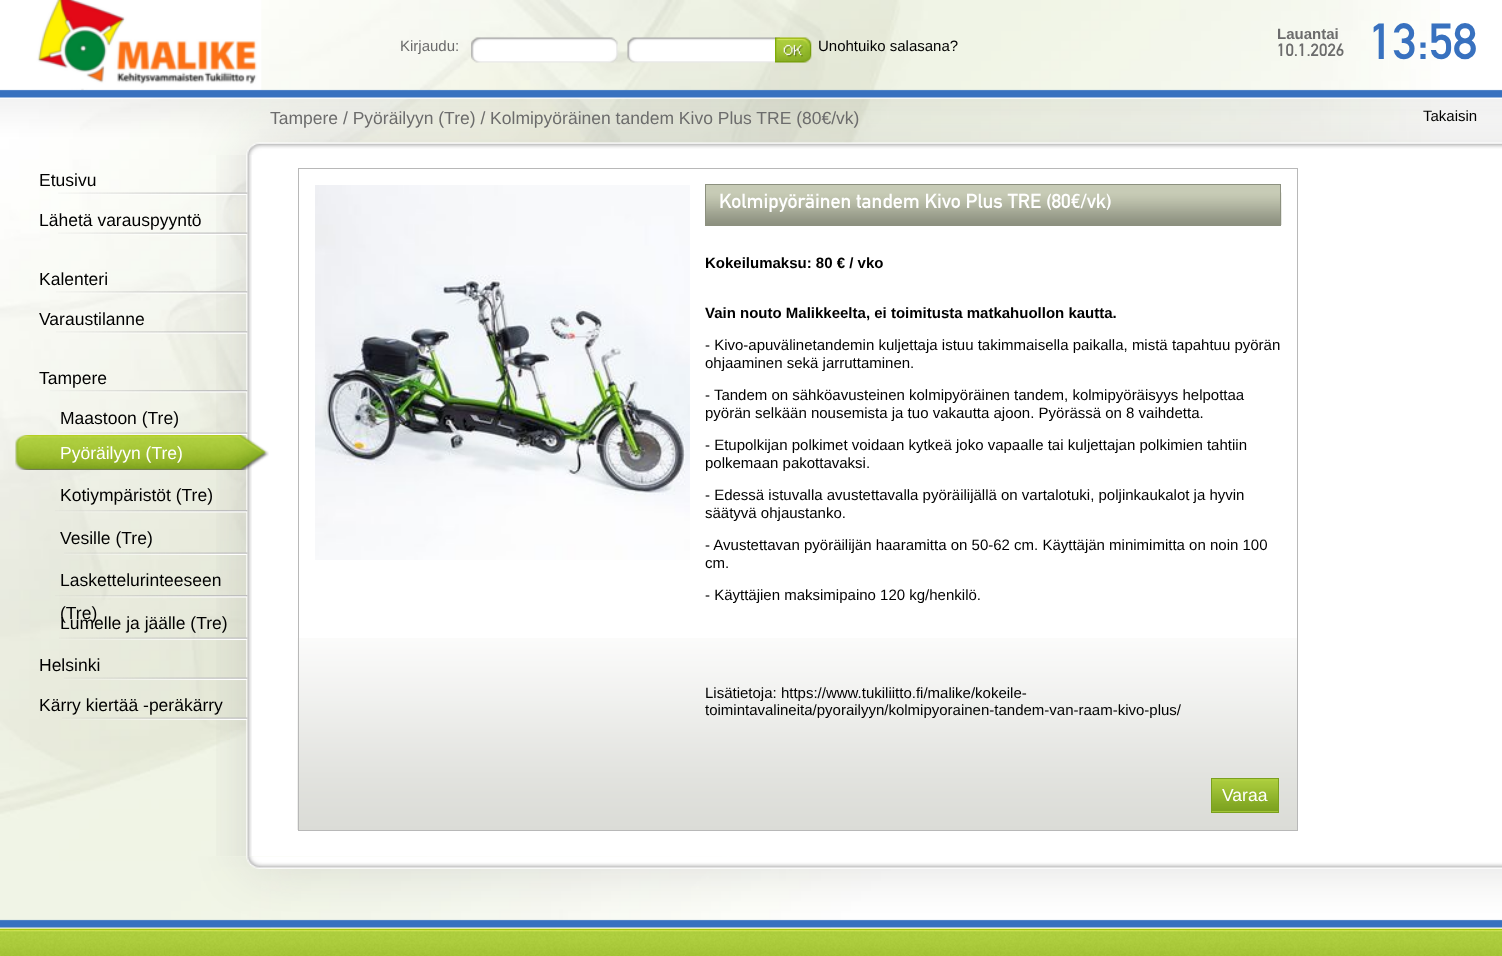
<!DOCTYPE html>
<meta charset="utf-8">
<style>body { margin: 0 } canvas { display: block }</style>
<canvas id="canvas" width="1502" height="956"></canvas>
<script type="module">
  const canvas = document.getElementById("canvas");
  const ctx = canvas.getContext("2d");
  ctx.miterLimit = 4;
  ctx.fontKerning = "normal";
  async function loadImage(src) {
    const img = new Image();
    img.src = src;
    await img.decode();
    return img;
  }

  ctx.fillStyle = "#ffffff";
  ctx.fillRect(0, 0, 1502, 956);
  ctx.drawImage(await loadImage("img1.png"), 0, 0, 1440, 929);
  ctx.drawImage(await loadImage("img2.png"), 0, 0, 1502, 155);
  ctx.font = "15px Liberation Sans";
  ctx.fillStyle = "#6c6c6c";
  ctx.fillText("Kirjaudu:", 400, 51);
  ctx.drawImage(await loadImage("img3.png"), 471, 37, 147, 26);
  ctx.drawImage(await loadImage("img4.png"), 627, 37, 153, 26);
  ctx.drawImage(await loadImage("img5.png"), 775, 37, 37, 26);
  ctx.fillStyle = "#000000";
  ctx.fillText("Unohtuiko salasana?", 818, 51);
  ctx.font = "bold 15px Liberation Sans";
  ctx.fillStyle = "#6c6c6c";
  ctx.fillText("Lauantai", 1277, 39);
  ctx.font = "17.5px 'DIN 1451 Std'";
  ctx.fillText("10.1.2026", 1277, 56);
  ctx.font = "50px 'DIN 1451 Std'";
  ctx.fillStyle = "#3871bf";
  ctx.fillText("13:58", 1369, 59);
  ctx.font = "17.5px Liberation Sans";
  ctx.fillStyle = "#6c6c6c";
  ctx.fillText("Tampere / Pyöräilyyn (Tre) / Kolmipyöräinen tandem Kivo Plus TRE (80€/vk)", 270, 124);
  ctx.font = "15px Liberation Sans";
  ctx.fillStyle = "#000000";
  ctx.fillText("Takaisin", 1423, 121);
  ctx.drawImage(await loadImage("img6.png"), 216, 155, 32, 701);
  ctx.drawImage(await loadImage("img7.png"), 58, 192, 190, 3);
  ctx.font = "17.5px Liberation Sans";
  ctx.fillText("Etusivu", 39, 186);
  ctx.drawImage(await loadImage("img8.png"), 58, 232, 190, 3);
  ctx.fillText("Lähetä varauspyyntö", 39, 226);
  ctx.drawImage(await loadImage("img9.png"), 56, 291, 192, 3);
  ctx.fillText("Kalenteri", 39, 285);
  ctx.drawImage(await loadImage("img10.png"), 56, 331, 192, 3);
  ctx.fillText("Varaustilanne", 39, 325);
  ctx.drawImage(await loadImage("img11.png"), 50, 390, 198, 3);
  ctx.fillText("Tampere", 39, 384);
  ctx.drawImage(await loadImage("img12.png"), 59, 432, 189, 3);
  ctx.fillText("Maastoon (Tre)", 60, 424);
  ctx.fillStyle = "#ffffff";
  ctx.fillRect(252, 155, 1188, 701);
  ctx.drawImage(await loadImage("img14.png"), 55, 510, 193, 3);
  ctx.drawImage(await loadImage("img15.png"), 64, 552, 184, 3);
  ctx.drawImage(await loadImage("img16.png"), 55, 595, 193, 3);
  ctx.drawImage(await loadImage("img17.png"), 59, 637, 189, 3);
  ctx.drawImage(await loadImage("img18.png"), 64, 677, 184, 3);
  ctx.drawImage(await loadImage("img19.png"), 62, 717, 186, 3);
  ctx.drawImage(await loadImage("img20.png"), 247, 155, 5, 702);
  ctx.drawImage(await loadImage("img13.png"), 15, 435, 254, 35);
  ctx.fillText("Pyöräilyyn (Tre)", 60, 459);
  ctx.fillStyle = "#000000";
  ctx.fillText("Kotiympäristöt (Tre)", 60, 501);
  ctx.fillText("Vesille (Tre)", 60, 544);
  ctx.fillText("Laskettelurinteeseen", 60, 586);
  ctx.fillText("(Tre)", 60, 619);
  ctx.fillText("Lumelle ja jäälle (Tre)", 60, 629);
  ctx.fillText("Helsinki", 39, 671);
  ctx.fillText("Kärry kiertää -peräkärry", 39, 711);
  ctx.drawImage(await loadImage("img21.png"), 297, 638, 1000, 192);
  ctx.strokeStyle = "#b8b8b8";
  ctx.strokeRect(298.5, 168.5, 999, 662);
  ctx.drawImage(await loadImage("img22.png"), 315, 185, 375, 375);
  ctx.fillStyle = "#c7cbb6";
  ctx.fillRect(706, 185, 574, 8);
  ctx.drawImage(await loadImage("img23.png"), 706, 192, 576, 33);
  ctx.strokeStyle = "#8c907f";
  ctx.strokeRect(705.5, 184.5, 575, 41);
  ctx.font = "20px 'DIN 1451 Std'";
  ctx.fillStyle = "#ffffff";
  ctx.fillText("Kolmipyöräinen tandem Kivo Plus TRE (80€/vk)", 719, 208);
  ctx.font = "bold 15px Liberation Sans";
  ctx.fillStyle = "#000000";
  ctx.fillText("Kokeilumaksu: 80 € / vko", 705, 268);
  ctx.fillText("Vain nouto Malikkeelta, ei toimitusta matkahuollon kautta.", 705, 318);
  ctx.font = "15px Liberation Sans";
  ctx.fillText("- Kivo-apuvälinetandemin kuljettaja istuu takimmaisella paikalla, mistä tapahtuu pyörän", 705, 350);
  ctx.fillText("ohjaaminen sekä jarruttaminen.", 705, 368);
  ctx.fillText("- Tandem on sähköavusteinen kolmipyöräinen tandem, kolmipyöräisyys helpottaa", 705, 400);
  ctx.fillText("pyörän selkään nousemista ja tuo vakautta ajoon. Pyörässä on 8 vaihdetta.", 705, 418);
  ctx.fillText("- Etupolkijan polkimet voidaan kytkeä joko vapaalle tai kuljettajan polkimien tahtiin", 705, 450);
  ctx.fillText("polkemaan pakottavaksi.", 705, 468);
  ctx.fillText("- Edessä istuvalla avustettavalla pyöräilijällä on vartalotuki, poljinkaukalot ja hyvin", 705, 500);
  ctx.fillText("säätyvä ohjaustanko.", 705, 518);
  ctx.fillText("- Avustettavan pyöräilijän haaramitta on 50-62 cm. Käyttäjän minimimitta on noin 100", 705, 550);
  ctx.fillText("cm.", 705, 568);
  ctx.fillText("- Käyttäjien maksimipaino 120 kg/henkilö.", 705, 600);
  ctx.fillText("Lisätietoja: https://www.tukiliitto.fi/malike/kokeile-", 705, 698);
  ctx.fillText("toimintavalineita/pyorailyyn/kolmipyorainen-tandem-van-raam-kivo-plus/", 705, 715);
  ctx.fillStyle = "#aecf3f";
  ctx.fillRect(1212, 779, 66, 33);
  ctx.drawImage(await loadImage("img24.png"), 1212, 781, 66, 31);
  ctx.strokeStyle = "#7aa01e";
  ctx.strokeRect(1211.5, 778.5, 67, 34);
  ctx.font = "17.5px Liberation Sans";
  ctx.fillStyle = "#ffffff";
  ctx.fillText("Varaa", 1222, 801);
  ctx.drawImage(await loadImage("img25.png"), 0, 856, 1502, 100);
</script>
